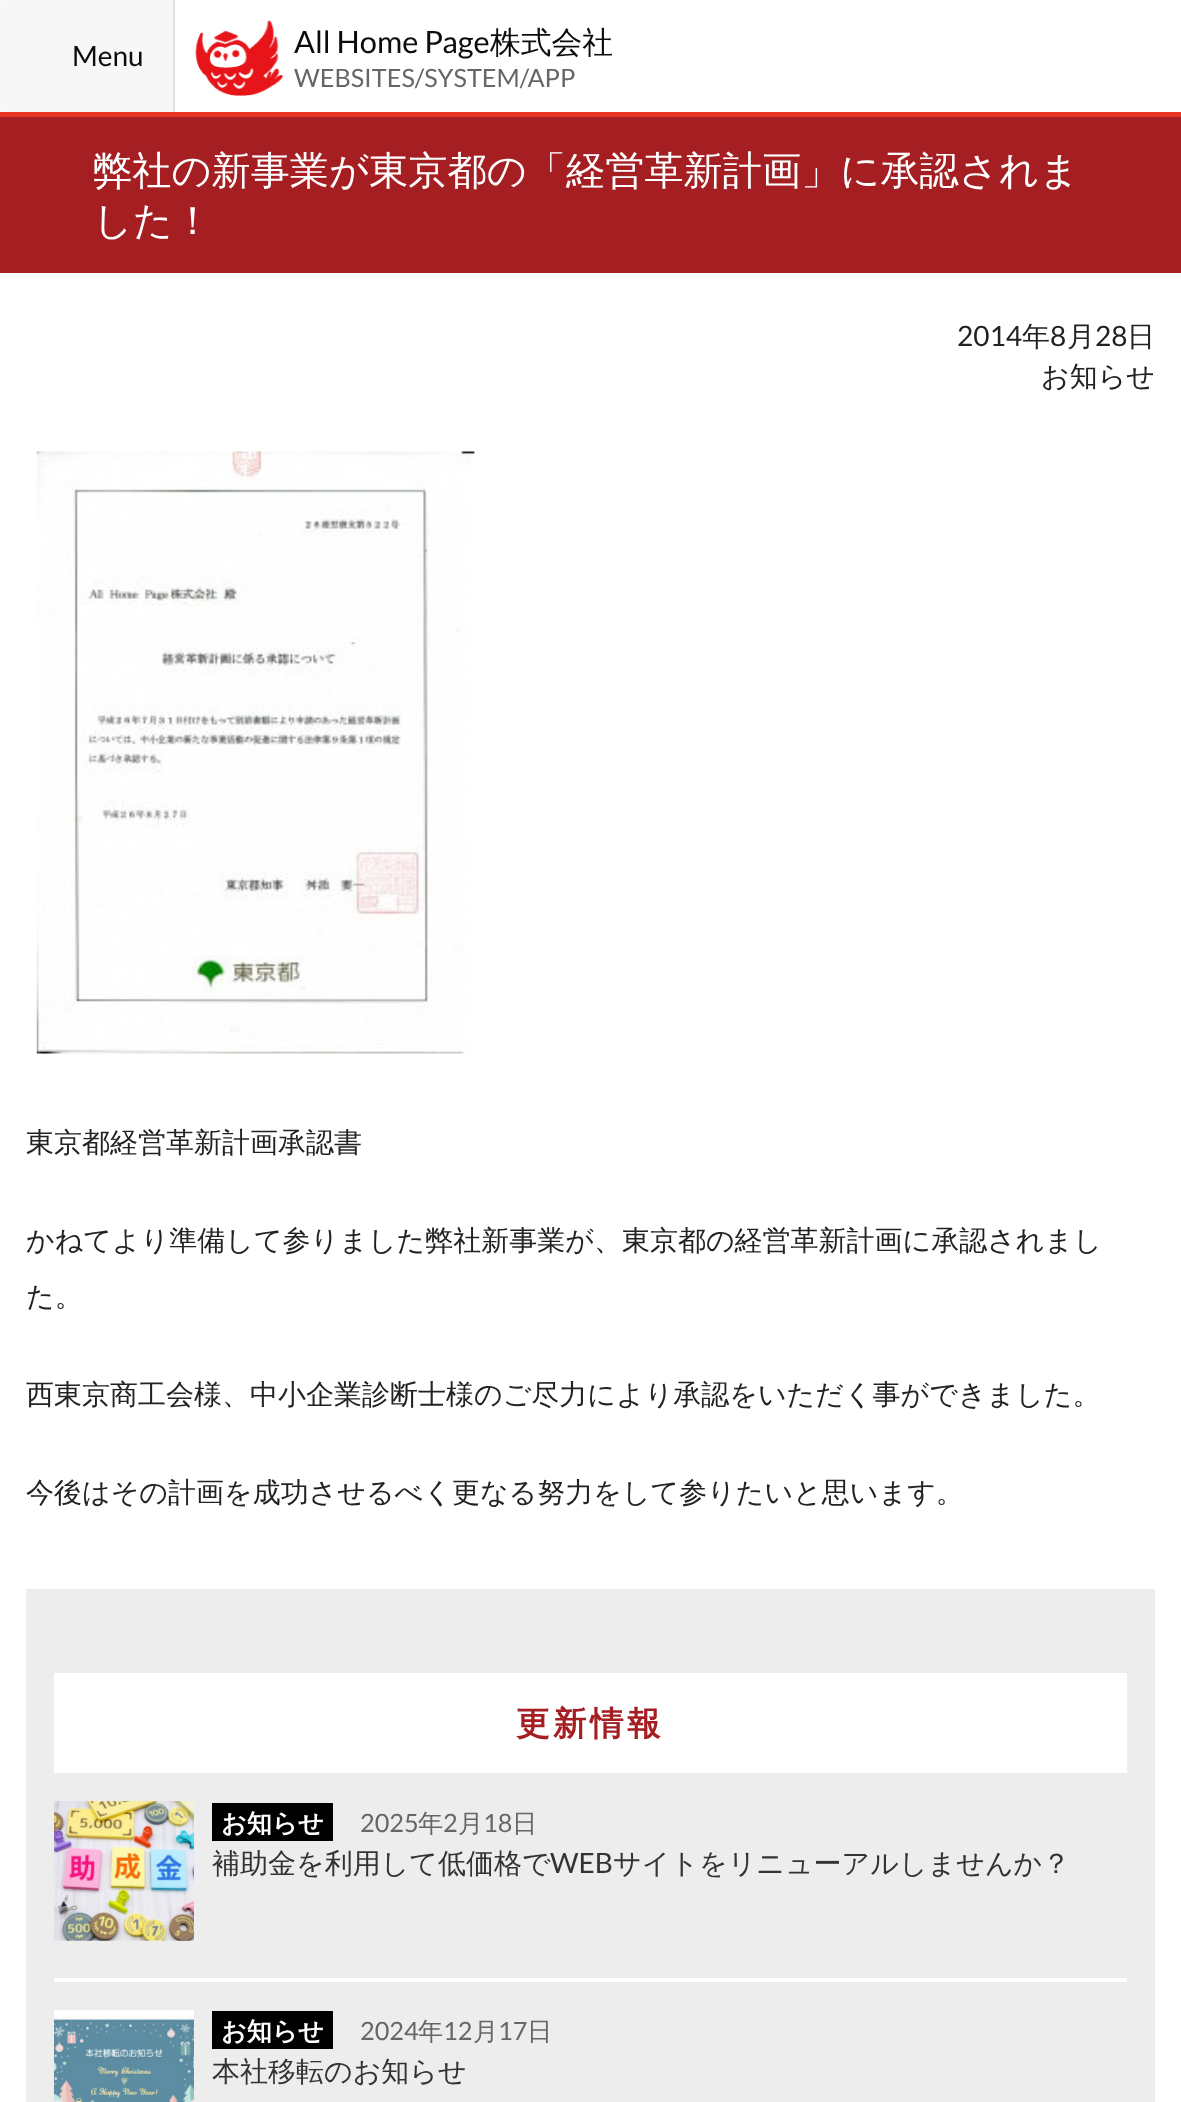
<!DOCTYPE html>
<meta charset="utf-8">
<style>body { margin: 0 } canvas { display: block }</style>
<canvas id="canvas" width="1181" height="2102"></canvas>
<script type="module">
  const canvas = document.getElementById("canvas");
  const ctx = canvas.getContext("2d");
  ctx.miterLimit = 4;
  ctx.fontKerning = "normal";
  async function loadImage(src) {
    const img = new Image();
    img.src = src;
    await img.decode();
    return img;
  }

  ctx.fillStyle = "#ffffff";
  ctx.fillRect(0, 0, 1181, 2102);
  ctx.fillStyle = "#e73521";
  ctx.fillRect(0, 112, 1181, 5);
  ctx.fillStyle = "#f7f7f7";
  ctx.beginPath();
  ctx.moveTo(6, 0);
  ctx.lineTo(175, 0);
  ctx.lineTo(175, 112);
  ctx.lineTo(6, 112);
  ctx.bezierCurveTo(1, 112, -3, 108, -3, 103);
  ctx.lineTo(-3, 9);
  ctx.bezierCurveTo(-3, 4, 1, 0, 6, 0);
  ctx.closePath();
  ctx.fill();
  ctx.font = "28px Lato";
  ctx.fillStyle = "#0c0c0c";
  ctx.fillText("Menu", 72, 66);
  ctx.fillStyle = "#e2e2e2";
  ctx.fillRect(173, 0, 2, 112);
  ctx.drawImage(await loadImage("img1.png"), 195, 20, 89, 76);
  ctx.font = "30.75px Lato";
  ctx.fillStyle = "#0c0c0c";
  ctx.fillText("All Home Page", 294, 53);
  ctx.font = "500 30.75px WenQuanYi Zen Hei";
  ctx.fillText("株式会社", 490, 53);
  ctx.font = "25.25px Lato";
  ctx.fillStyle = "#666666";
  ctx.fillText("WEBSITES/SYSTEM/APP", 294, 87);
  ctx.fillStyle = "#a51e22";
  ctx.fillRect(0, 117, 1181, 156);
  ctx.font = "500 39.2px WenQuanYi Zen Hei";
  ctx.fillStyle = "#ffffff";
  ctx.fillText("弊社の新事業が東京都の「経営革新計画」に承認されま", 93, 184);
  ctx.fillText("した！", 93, 234);
  ctx.font = "28px Lato";
  ctx.fillStyle = "#222222";
  ctx.fillText("2014", 957, 346);
  ctx.font = "500 28px WenQuanYi Zen Hei";
  ctx.fillText("年", 1022, 346);
  ctx.font = "28px Lato";
  ctx.fillText("8", 1050, 346);
  ctx.font = "500 28px WenQuanYi Zen Hei";
  ctx.fillText("月", 1067, 346);
  ctx.font = "28px Lato";
  ctx.fillText("28", 1095, 346);
  ctx.font = "500 28px WenQuanYi Zen Hei";
  ctx.fillText("日", 1127, 346);
  ctx.fillText("お知らせ", 1041, 386);
  ctx.drawImage(await loadImage("img2.png"), 36, 451, 439, 603);
  ctx.fillText("東京都経営革新計画承認書", 26, 1152);
  ctx.fillText("かねてより準備して参りました弊社新事業が、東京都の経営革新計画に承認されまし", 26, 1250);
  ctx.fillText("た。", 26, 1306);
  ctx.fillText("西東京商工会様、中小企業診断士様のご尽力により承認をいただく事ができました。", 26, 1404);
  ctx.fillText("今後はその計画を成功させるべく更なる努力をして参りたいと思います。", 26, 1502);
  ctx.fillStyle = "#ededed";
  ctx.fillRect(26, 1589, 1129, 513);
  ctx.fillStyle = "#ffffff";
  ctx.fillRect(54, 1673, 1073, 100);
  ctx.letterSpacing = "3.5px";
  ctx.font = "bold 33.5px WenQuanYi Zen Hei";
  ctx.fillStyle = "#a51e22";
  ctx.fillText("更新情報", 516, 1735);
  ctx.fillStyle = "#ffffff";
  ctx.fillRect(54, 1978, 1073, 4);
  ctx.drawImage(await loadImage("img3.png"), 54, 1801, 140, 140);
  ctx.fillStyle = "#000000";
  ctx.fillRect(212, 1803, 121, 38);
  ctx.letterSpacing = "0px";
  ctx.font = "bold 25.25px WenQuanYi Zen Hei";
  ctx.fillStyle = "#ffffff";
  ctx.fillText("お知らせ", 221, 1832);
  ctx.font = "25.25px Lato";
  ctx.fillStyle = "#666666";
  ctx.fillText("2025", 360, 1832);
  ctx.font = "500 25.25px WenQuanYi Zen Hei";
  ctx.fillText("年", 418, 1832);
  ctx.font = "25.25px Lato";
  ctx.fillText("2", 443, 1832);
  ctx.font = "500 25.25px WenQuanYi Zen Hei";
  ctx.fillText("月", 458, 1832);
  ctx.font = "25.25px Lato";
  ctx.fillText("18", 483, 1832);
  ctx.font = "500 25.25px WenQuanYi Zen Hei";
  ctx.fillText("日", 512, 1832);
  ctx.font = "500 28px WenQuanYi Zen Hei";
  ctx.fillStyle = "#333333";
  ctx.fillText("補助金を利用して低価格で", 212, 1873);
  ctx.font = "28px Lato";
  ctx.fillText("WEB", 550, 1873);
  ctx.font = "500 28px WenQuanYi Zen Hei";
  ctx.fillText("サイトをリニューアルしませんか？", 613, 1873);
  ctx.fillStyle = "#cccccc";
  ctx.fillRect(54, 2009, 140, 1);
  ctx.drawImage(await loadImage("img4.png"), 54, 2009, 140, 93);
  ctx.fillStyle = "#000000";
  ctx.fillRect(212, 2011, 121, 38);
  ctx.font = "bold 25.25px WenQuanYi Zen Hei";
  ctx.fillStyle = "#ffffff";
  ctx.fillText("お知らせ", 221, 2040);
  ctx.font = "25.25px Lato";
  ctx.fillStyle = "#666666";
  ctx.fillText("2024", 360, 2040);
  ctx.font = "500 25.25px WenQuanYi Zen Hei";
  ctx.fillText("年", 418, 2040);
  ctx.font = "25.25px Lato";
  ctx.fillText("12", 443, 2040);
  ctx.font = "500 25.25px WenQuanYi Zen Hei";
  ctx.fillText("月", 473, 2040);
  ctx.font = "25.25px Lato";
  ctx.fillText("17", 498, 2040);
  ctx.font = "500 25.25px WenQuanYi Zen Hei";
  ctx.fillText("日", 527, 2040);
  ctx.font = "500 28px WenQuanYi Zen Hei";
  ctx.fillStyle = "#333333";
  ctx.fillText("本社移転のお知らせ", 212, 2081);
</script>
